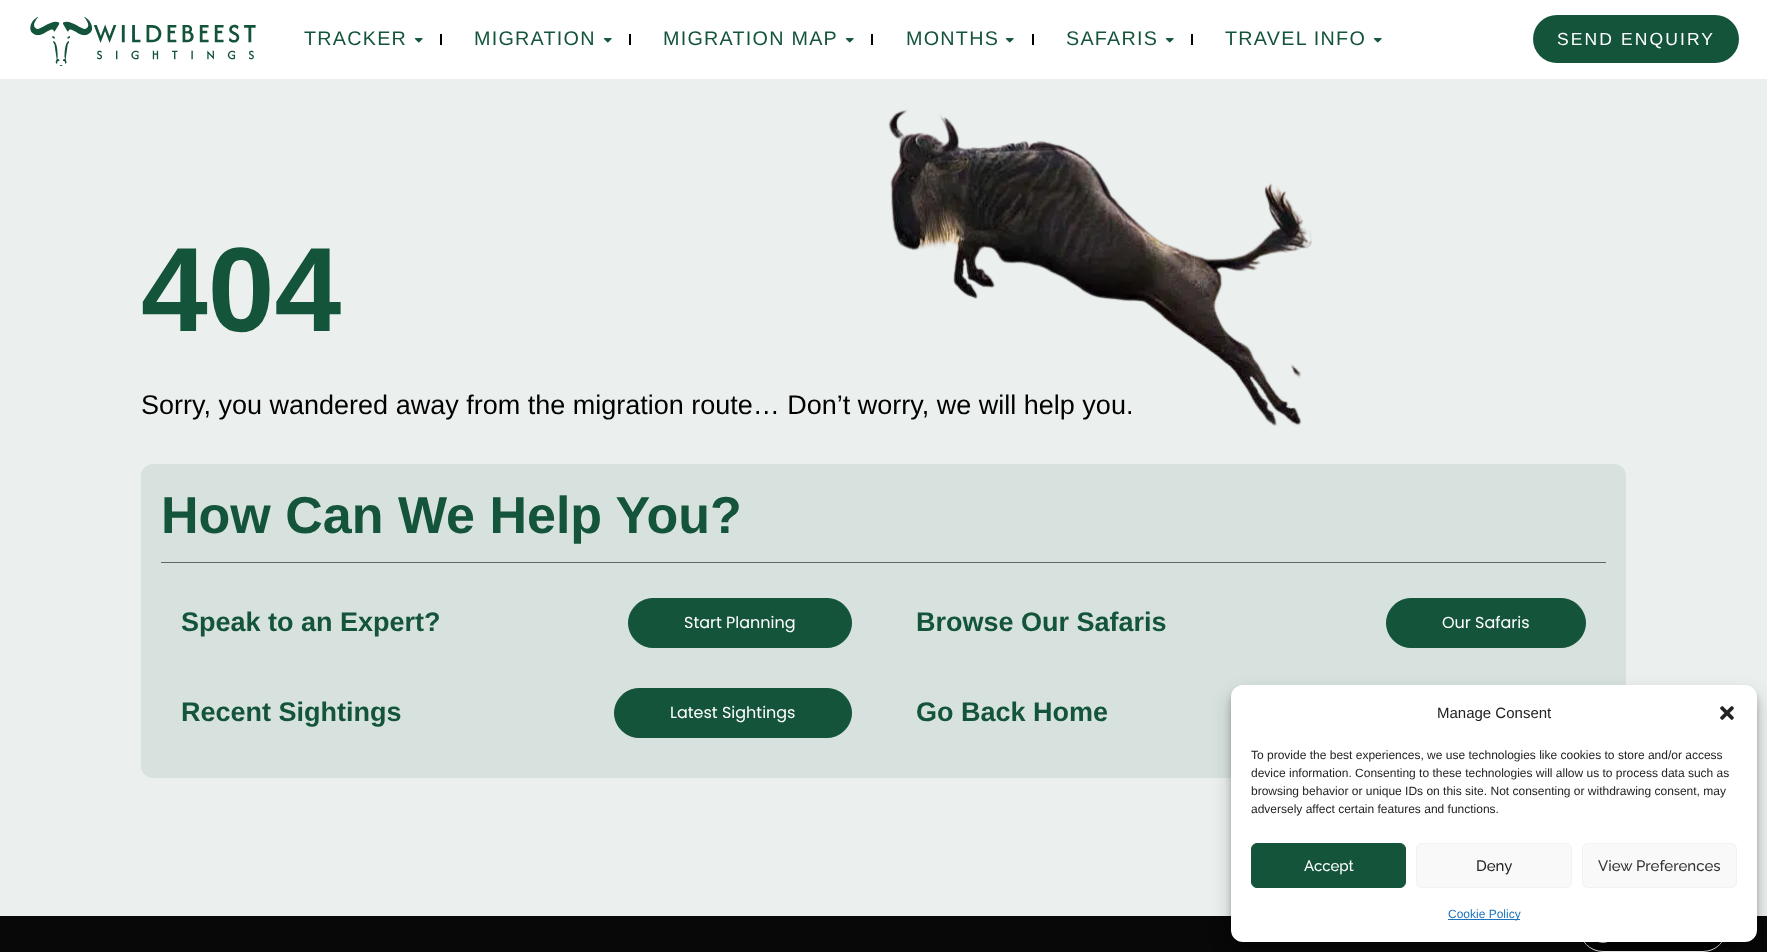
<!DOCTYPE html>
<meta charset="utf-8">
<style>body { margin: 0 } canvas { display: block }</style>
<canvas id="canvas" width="1767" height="952"></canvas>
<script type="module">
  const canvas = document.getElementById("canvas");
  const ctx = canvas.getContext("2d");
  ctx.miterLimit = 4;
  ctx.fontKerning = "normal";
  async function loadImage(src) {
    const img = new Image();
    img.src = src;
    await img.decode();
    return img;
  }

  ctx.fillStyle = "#ebf0ee";
  ctx.fillRect(0, 0, 1767, 952);
  ctx.fillStyle = "#ffffff";
  ctx.fillRect(0, 0, 1767, 79);
  ctx.drawImage(await loadImage("img1.png"), 30, 16, 226, 50);
  ctx.letterSpacing = "1.25px";
  ctx.font = "19.75px Liberation Sans";
  ctx.fillStyle = "#13543a";
  ctx.fillText("TRACKER", 304, 45);
  ctx.drawImage(await loadImage("img2.png"), 414, 38, 9, 5);
  ctx.fillStyle = "#000000";
  ctx.fillRect(440, 34, 2, 11);
  ctx.fillStyle = "#13543a";
  ctx.fillText("MIGRATION", 474, 45);
  ctx.drawImage(await loadImage("img2.png"), 603, 38, 9, 5);
  ctx.fillStyle = "#000000";
  ctx.fillRect(629, 34, 2, 11);
  ctx.fillStyle = "#13543a";
  ctx.fillText("MIGRATION MAP", 663, 45);
  ctx.drawImage(await loadImage("img2.png"), 845, 38, 9, 5);
  ctx.fillStyle = "#000000";
  ctx.fillRect(871, 34, 2, 11);
  ctx.fillStyle = "#13543a";
  ctx.fillText("MONTHS", 906, 45);
  ctx.drawImage(await loadImage("img2.png"), 1005, 38, 9, 5);
  ctx.fillStyle = "#000000";
  ctx.fillRect(1032, 34, 2, 11);
  ctx.fillStyle = "#13543a";
  ctx.fillText("SAFARIS", 1066, 45);
  ctx.drawImage(await loadImage("img2.png"), 1165, 38, 9, 5);
  ctx.fillStyle = "#000000";
  ctx.fillRect(1191, 34, 2, 11);
  ctx.fillStyle = "#13543a";
  ctx.fillText("TRAVEL INFO", 1225, 45);
  ctx.drawImage(await loadImage("img2.png"), 1373, 38, 9, 5);
  ctx.beginPath();
  ctx.roundRect(1533, 15, 206, 48, 24);
  ctx.fill();
  ctx.letterSpacing = "2.1px";
  ctx.font = "17.5px Liberation Sans";
  ctx.fillStyle = "#ffffff";
  ctx.fillText("SEND ENQUIRY", 1557, 45);
  ctx.drawImage(await loadImage("img3.png"), 888, 109, 424, 317);
  ctx.letterSpacing = "0px";
  ctx.font = "bold 120px Liberation Sans";
  ctx.fillStyle = "#13543a";
  ctx.fillText("404", 141, 331);
  ctx.font = "27px Liberation Sans";
  ctx.fillStyle = "#000000";
  ctx.fillText("Sorry, you wandered away from the migration route… Don’t worry, we will help you.", 141, 414);
  ctx.fillStyle = "#d7e2df";
  ctx.beginPath();
  ctx.roundRect(141, 464, 1485, 314, 12);
  ctx.fill();
  ctx.font = "bold 52px Liberation Sans";
  ctx.fillStyle = "#13543a";
  ctx.fillText("How Can We Help You?", 161, 533);
  ctx.fillStyle = "#616565";
  ctx.fillRect(161, 562, 1445, 1);
  ctx.font = "bold 27px Liberation Sans";
  ctx.fillStyle = "#13543a";
  ctx.fillText("Speak to an Expert?", 181, 631);
  ctx.beginPath();
  ctx.roundRect(628.5, 598.5, 223, 49, 24.5);
  ctx.fill();
  ctx.strokeStyle = "#13543a";
  ctx.stroke();
  ctx.font = "16px Poppins";
  ctx.fillStyle = "#ffffff";
  ctx.fillText("Start Planning", 684, 628);
  ctx.font = "bold 27px Liberation Sans";
  ctx.fillStyle = "#13543a";
  ctx.fillText("Browse Our Safaris", 916, 631);
  ctx.beginPath();
  ctx.roundRect(1386.5, 598.5, 199, 49, 24.5);
  ctx.fill();
  ctx.stroke();
  ctx.font = "16px Poppins";
  ctx.fillStyle = "#ffffff";
  ctx.fillText("Our Safaris", 1442, 628);
  ctx.font = "bold 27px Liberation Sans";
  ctx.fillStyle = "#13543a";
  ctx.fillText("Recent Sightings", 181, 721);
  ctx.beginPath();
  ctx.roundRect(614.5, 688.5, 237, 49, 24.5);
  ctx.fill();
  ctx.stroke();
  ctx.font = "16px Poppins";
  ctx.fillStyle = "#ffffff";
  ctx.fillText("Latest Sightings", 670, 718);
  ctx.font = "bold 27px Liberation Sans";
  ctx.fillStyle = "#13543a";
  ctx.fillText("Go Back Home", 916, 721);
  ctx.fillStyle = "#080808";
  ctx.fillRect(0, 916, 1767, 36);
  ctx.fillStyle = "#000000";
  ctx.beginPath();
  ctx.roundRect(1579.5, 904.5, 147, 47, 23.5);
  ctx.fill();
  ctx.strokeStyle = "#ffffff";
  ctx.stroke();
  ctx.fillStyle = "#ffffff";
  ctx.beginPath();
  ctx.arc(1603, 928, 15, 0, Math.PI * 2);
  ctx.fill();
  ctx.fillStyle = "rgba(0, 0, 0, 0.23)";
  ctx.filter = "blur(3px)";
  ctx.beginPath();
  ctx.roundRect(1231, 691, 526, 257, 12);
  ctx.fill();
  ctx.filter = "none";
  ctx.fillStyle = "rgba(0, 0, 0, 0.19)";
  ctx.filter = "blur(10px)";
  ctx.beginPath();
  ctx.roundRect(1231, 695, 526, 257, 12);
  ctx.fill();
  ctx.filter = "none";
  ctx.fillStyle = "#ffffff";
  ctx.beginPath();
  ctx.roundRect(1231, 685, 526, 257, 12);
  ctx.fill();
  ctx.font = "15px Liberation Sans";
  ctx.fillStyle = "#222222";
  ctx.fillText("Manage Consent", 1437, 718);
  ctx.drawImage(await loadImage("img4.png"), 1720, 706, 14, 14);
  ctx.font = "12px Liberation Sans";
  ctx.fillText("To provide the best experiences, we use technologies like cookies to store and/or access", 1251, 759);
  ctx.fillText("device information. Consenting to these technologies will allow us to process data such as", 1251, 777);
  ctx.fillText("browsing behavior or unique IDs on this site. Not consenting or withdrawing consent, may", 1251, 795);
  ctx.fillText("adversely affect certain features and functions.", 1251, 813);
  ctx.fillStyle = "#13543a";
  ctx.beginPath();
  ctx.roundRect(1251.5, 843.5, 154, 44, 5.5);
  ctx.fill();
  ctx.strokeStyle = "#13543a";
  ctx.stroke();
  ctx.font = "500 15px Raleway";
  ctx.fillStyle = "#ffffff";
  ctx.fillText("Accept", 1304, 871);
  ctx.fillStyle = "#f9f9f9";
  ctx.beginPath();
  ctx.roundRect(1416.5, 843.5, 155, 44, 5.5);
  ctx.fill();
  ctx.strokeStyle = "#f2f2f2";
  ctx.stroke();
  ctx.fillStyle = "#222222";
  ctx.fillText("Deny", 1476, 871);
  ctx.fillStyle = "#f9f9f9";
  ctx.beginPath();
  ctx.roundRect(1582.5, 843.5, 154, 44, 5.5);
  ctx.fill();
  ctx.stroke();
  ctx.fillStyle = "#333333";
  ctx.fillText("View Preferences", 1598, 871);
  ctx.fillStyle = "#1e73be";
  ctx.fillRect(1448, 919, 72, 1);
  ctx.font = "12px Liberation Sans";
  ctx.fillText("Cookie Policy", 1448, 918);
</script>
